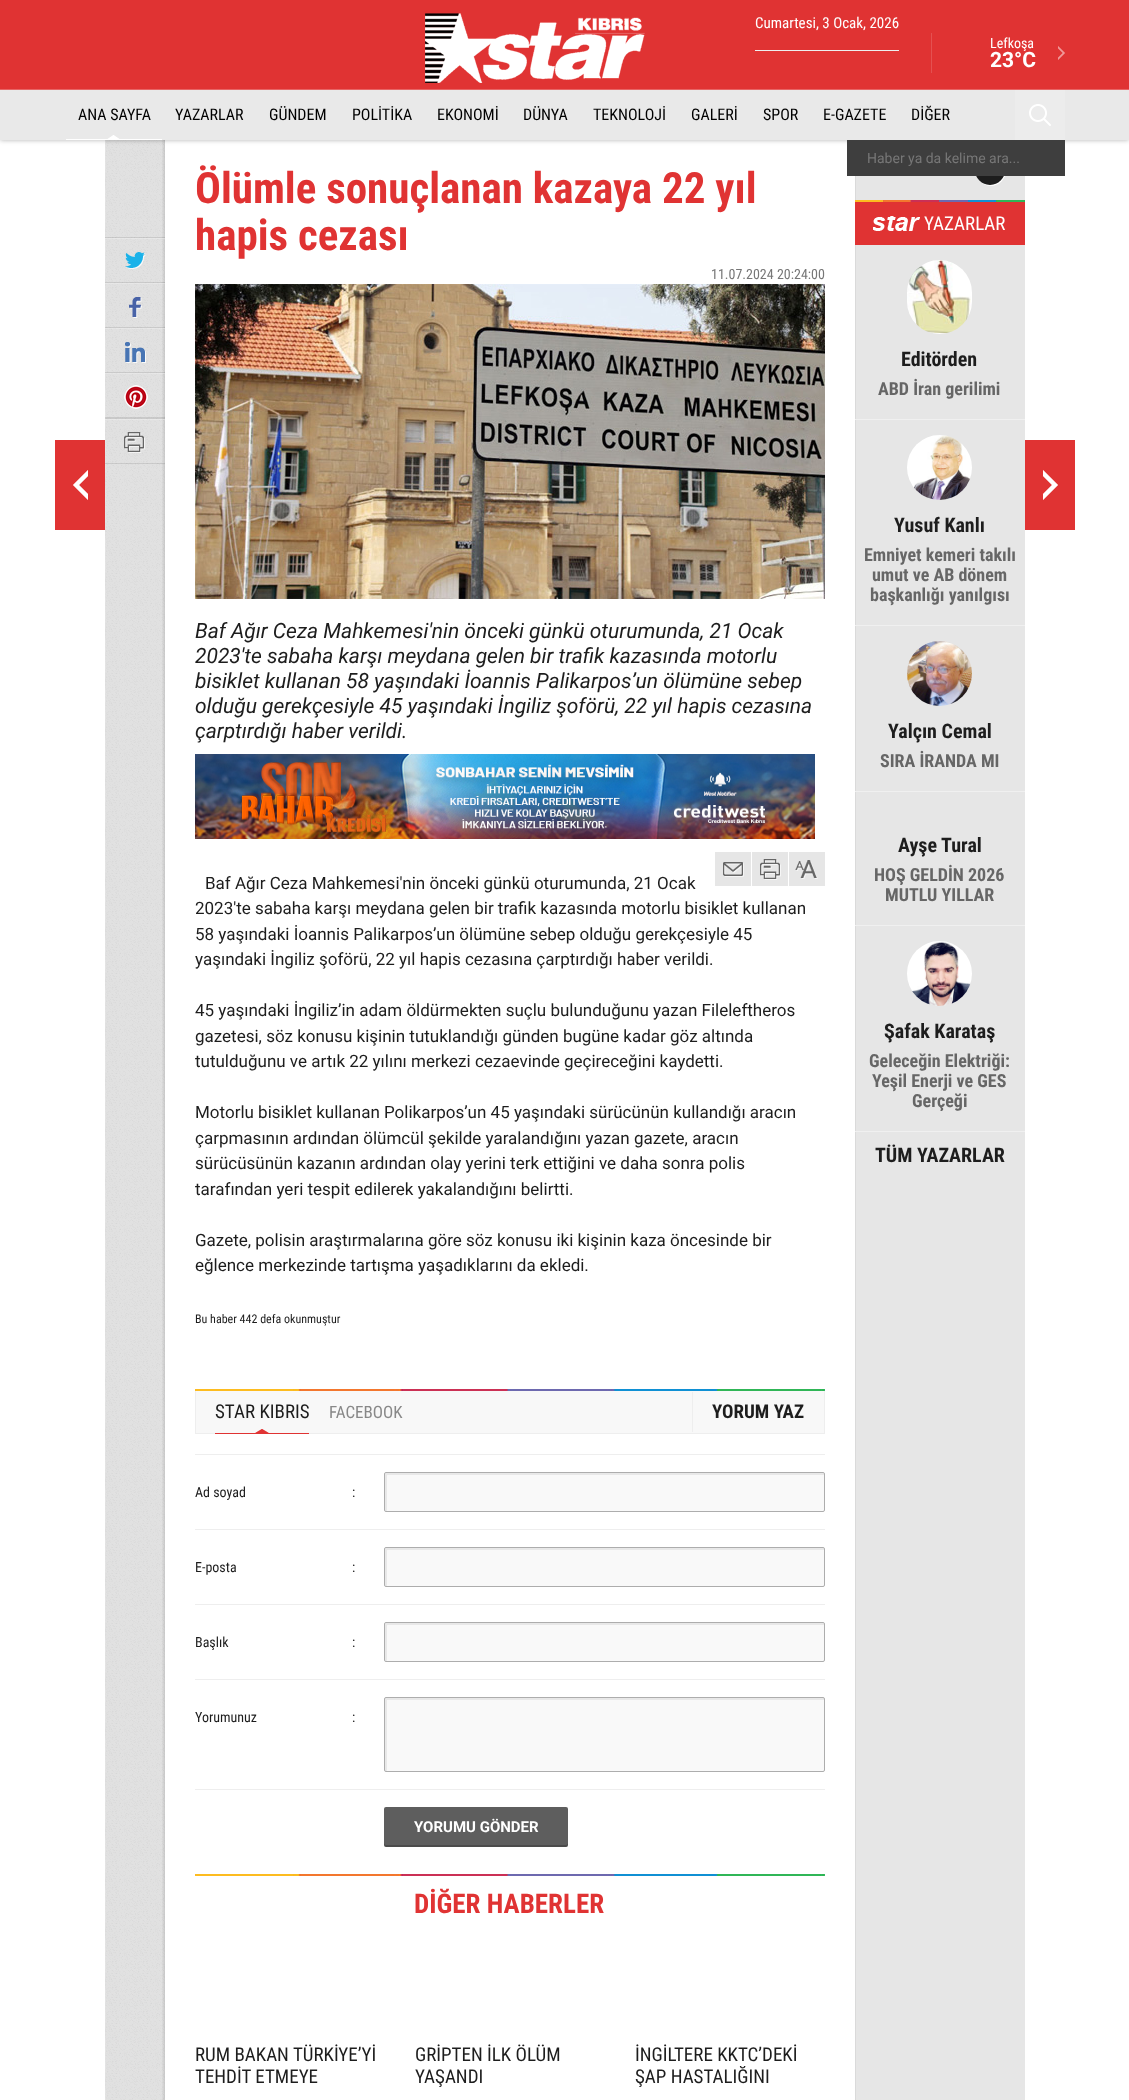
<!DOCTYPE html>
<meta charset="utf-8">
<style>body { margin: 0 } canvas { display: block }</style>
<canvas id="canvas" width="1129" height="2100"></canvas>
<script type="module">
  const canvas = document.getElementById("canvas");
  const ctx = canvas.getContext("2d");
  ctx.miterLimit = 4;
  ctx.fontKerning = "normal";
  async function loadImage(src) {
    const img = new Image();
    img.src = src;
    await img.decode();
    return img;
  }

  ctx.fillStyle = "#ffffff";
  ctx.fillRect(0, 0, 1129, 2100);
  ctx.drawImage(await loadImage("img6.png"), 105, 140, 920, 1960);
  ctx.fillStyle = "rgba(0, 0, 0, 0.3)";
  ctx.filter = "blur(2.5px)";
  ctx.beginPath();
  ctx.rect(0, 90, 1129, 50);
  ctx.fill();
  ctx.filter = "none";
  ctx.fillStyle = "#e03333";
  ctx.fillRect(0, 0, 1129, 89);
  ctx.fillStyle = "#e76565";
  ctx.fillRect(0, 89, 1129, 1);
  ctx.drawImage(await loadImage("img1.png"), 425, 13, 220, 70);
  ctx.fillStyle = "#eeeeee";
  ctx.fillRect(755, 50, 144, 1);
  ctx.font = "15px Roboto Condensed";
  ctx.fillStyle = "#ffffff";
  ctx.fillText("Cumartesi, 3 Ocak, 2026", 755, 28);
  ctx.fillStyle = "#e45151";
  ctx.fillRect(931, 33, 1, 40);
  ctx.font = "14px Roboto Condensed";
  ctx.fillStyle = "#ffffff";
  ctx.fillText("Lefkoşa", 990, 48);
  ctx.font = "bold 21px Roboto";
  ctx.fillText("23°C", 990, 67);
  ctx.drawImage(await loadImage("img2.png"), 1058, 46, 7, 14);
  ctx.fillStyle = "#e9e9e9";
  ctx.fillRect(0, 90, 1129, 50);
  ctx.drawImage(await loadImage("img3.png"), 107, 135, 13, 4);
  ctx.fillStyle = "#ffffff";
  ctx.fillRect(66, 139, 96, 1);
  ctx.font = "16px Roboto Condensed";
  ctx.fillStyle = "#000000";
  ctx.fillText("ANA SAYFA", 78, 120);
  ctx.fillText("YAZARLAR", 175, 120);
  ctx.fillText("GÜNDEM", 269, 120);
  ctx.fillText("POLİTİKA", 352, 120);
  ctx.fillText("EKONOMİ", 437, 120);
  ctx.fillText("DÜNYA", 523, 120);
  ctx.fillText("TEKNOLOJİ", 593, 120);
  ctx.fillText("GALERİ", 691, 120);
  ctx.fillText("SPOR", 763, 120);
  ctx.fillText("E-GAZETE", 823, 120);
  ctx.fillText("DİĞER", 911, 120);
  ctx.fillStyle = "#ececec";
  ctx.fillRect(1015, 90, 50, 50);
  ctx.drawImage(await loadImage("img4.png"), 1029, 104, 22, 22);
  ctx.fillStyle = "#ffffff";
  ctx.beginPath();
  ctx.moveTo(980, 181);
  ctx.bezierCurveTo(985.5, 187.5, 995.5, 187.5, 1001.5, 181.5);
  ctx.bezierCurveTo(1007.5, 175.5, 1007.5, 165.5, 1001, 160);
  ctx.bezierCurveTo(1014, 174, 994, 194, 980, 181);
  ctx.closePath();
  ctx.fill();
  ctx.fillStyle = "#1d1d1d";
  ctx.beginPath();
  ctx.arc(990, 170, 15, 0, Math.PI * 2);
  ctx.fill();
  ctx.fillStyle = "#3e3e3e";
  ctx.fillRect(847, 140, 218, 36);
  ctx.font = "14px Roboto";
  ctx.fillStyle = "#777777";
  ctx.fillText("Haber ya da kelime ara...", 867, 163);
  ctx.fillStyle = "#e03333";
  ctx.fillRect(55, 440, 50, 90);
  ctx.drawImage(await loadImage("img5.png"), 73, 470, 15, 30);
  ctx.font = "bold 43px Roboto Condensed";
  ctx.fillText("Ölümle sonuçlanan kazaya 22 yıl", 195, 203);
  ctx.fillText("hapis cezası", 195, 250);
  ctx.drawImage(await loadImage("img7.png"), 125, 252, 21, 17);
  ctx.fillStyle = "rgba(0, 0, 0, 0.1)";
  ctx.fillRect(105, 237, 60, 1);
  ctx.fillStyle = "rgba(250, 250, 250, 0.3)";
  ctx.fillRect(105, 238, 60, 1);
  ctx.drawImage(await loadImage("img8.png"), 129, 297, 13, 21);
  ctx.fillStyle = "rgba(0, 0, 0, 0.1)";
  ctx.fillRect(105, 282, 60, 1);
  ctx.fillStyle = "rgba(250, 250, 250, 0.3)";
  ctx.fillRect(105, 283, 60, 1);
  ctx.drawImage(await loadImage("img9.png"), 125, 342, 21, 21);
  ctx.fillStyle = "rgba(0, 0, 0, 0.1)";
  ctx.fillRect(105, 327, 60, 1);
  ctx.fillStyle = "rgba(250, 250, 250, 0.3)";
  ctx.fillRect(105, 328, 60, 1);
  ctx.drawImage(await loadImage("img10.png"), 124, 385, 24, 24);
  ctx.fillStyle = "rgba(0, 0, 0, 0.1)";
  ctx.fillRect(105, 372, 60, 1);
  ctx.fillStyle = "rgba(250, 250, 250, 0.3)";
  ctx.fillRect(105, 373, 60, 1);
  ctx.fillStyle = "rgba(0, 0, 0, 0.1)";
  ctx.fillRect(105, 417, 60, 1);
  ctx.fillRect(105, 463, 60, 1);
  ctx.drawImage(await loadImage("img11.png"), 124, 432, 21, 21);
  ctx.fillRect(105, 418, 60, 1);
  ctx.fillStyle = "rgba(250, 250, 250, 0.3)";
  ctx.fillRect(105, 419, 60, 1);
  ctx.font = "14px Roboto Condensed";
  ctx.fillStyle = "#777777";
  ctx.fillText("11.07.2024 20:24:00", 711, 279);
  ctx.drawImage(await loadImage("img12.png"), 195, 284, 630, 315);
  ctx.font = "italic 21px Roboto";
  ctx.fillStyle = "#1d1d1d";
  ctx.fillText("Baf Ağır Ceza Mahkemesi'nin önceki günkü oturumunda, 21 Ocak", 195, 638);
  ctx.fillText("2023'te sabaha karşı meydana gelen bir trafik kazasında motorlu", 195, 663);
  ctx.fillText("bisiklet kullanan 58 yaşındaki İoannis Palikarpos’un ölümüne sebep", 195, 688);
  ctx.fillText("olduğu gerekçesiyle 45 yaşındaki İngiliz şoförü, 22 yıl hapis cezasına", 195, 713);
  ctx.fillText("çarptırdığı haber verildi.", 195, 738);
  ctx.drawImage(await loadImage("img13.png"), 195, 754, 620, 85);
  ctx.fillStyle = "#e6e6e6";
  ctx.fillRect(715, 852, 36, 34);
  ctx.drawImage(await loadImage("img14.png"), 723, 862, 21, 15);
  ctx.fillRect(752, 852, 36, 34);
  ctx.drawImage(await loadImage("img15.png"), 760, 859, 21, 21);
  ctx.fillRect(789, 852, 36, 34);
  ctx.drawImage(await loadImage("img16.png"), 795, 860, 23, 19);
  ctx.font = "17px Roboto";
  ctx.fillStyle = "#1d1d1d";
  ctx.fillText("Baf Ağır Ceza Mahkemesi'nin önceki günkü oturumunda, 21 Ocak", 205, 889);
  ctx.fillText("2023'te sabaha karşı meydana gelen bir trafik kazasında motorlu bisiklet kullanan", 195, 914);
  ctx.fillText("58 yaşındaki İoannis Palikarpos’un ölümüne sebep olduğu gerekçesiyle 45", 195, 940);
  ctx.fillText("yaşındaki İngiliz şoförü, 22 yıl hapis cezasına çarptırdığı haber verildi.", 195, 965);
  ctx.fillText("45 yaşındaki İngiliz’in adam öldürmekten suçlu bulunduğunu yazan Fileleftheros", 195, 1016);
  ctx.fillText("gazetesi, söz konusu kişinin tutuklandığı günden bugüne kadar göz altında", 195, 1042);
  ctx.fillText("tutulduğunu ve artık 22 yılını merkezi cezaevinde geçireceğini kaydetti.", 195, 1067);
  ctx.fillText("Motorlu bisiklet kullanan Polikarpos’un 45 yaşındaki sürücünün kullandığı aracın", 195, 1118);
  ctx.fillText("çarpmasının ardından ölümcül şekilde yaralandığını yazan gazete, aracın", 195, 1144);
  ctx.fillText("sürücüsünün kazanın ardından olay yerini terk ettiğini ve daha sonra polis", 195, 1169);
  ctx.fillText("tarafından yeri tespit edilerek yakalandığını belirtti.", 195, 1195);
  ctx.fillText("Gazete, polisin araştırmalarına göre söz konusu iki kişinin kaza öncesinde bir", 195, 1246);
  ctx.fillText("eğlence merkezinde tartışma yaşadıklarını da ekledi.", 195, 1271);
  ctx.font = "12px Roboto Condensed";
  ctx.fillText("Bu haber 442 defa okunmuştur", 195, 1323);
  ctx.drawImage(await loadImage("img17.png"), 195, 1389, 630, 2);
  ctx.fillStyle = "#f8f8f8";
  ctx.fillRect(196, 1391, 628, 42);
  ctx.fillStyle = "#eeeeee";
  ctx.fillRect(824, 1391, 1, 43);
  ctx.fillRect(195, 1433, 630, 1);
  ctx.fillRect(195, 1391, 1, 43);
  ctx.drawImage(await loadImage("img18.png"), 255, 1429, 14, 4);
  ctx.fillStyle = "#e03333";
  ctx.fillRect(215, 1433, 94, 1);
  ctx.font = "19px Roboto Condensed";
  ctx.fillStyle = "#1d1d1d";
  ctx.fillText("STAR KIBRIS", 215, 1418);
  ctx.font = "17px Roboto Condensed";
  ctx.fillStyle = "#888888";
  ctx.fillText("FACEBOOK", 329, 1418);
  ctx.fillStyle = "#eeeeee";
  ctx.fillRect(692, 1392, 1, 40);
  ctx.font = "bold 19px Roboto Condensed";
  ctx.fillStyle = "#1d1d1d";
  ctx.fillText("YORUM YAZ", 712, 1418);
  ctx.fillStyle = "#eeeeee";
  ctx.fillRect(195, 1454, 630, 1);
  ctx.font = "14px Roboto Condensed";
  ctx.fillStyle = "#1d1d1d";
  ctx.fillText("Ad soyad", 195, 1497);
  ctx.fillText(":", 352, 1497);
  ctx.fillStyle = "#f9f9f9";
  ctx.beginPath();
  ctx.roundRect(384, 1472, 441, 40, 2);
  ctx.fill();
  ctx.fillStyle = "#e8e8e8";
  ctx.beginPath();
  ctx.moveTo(388, 1475);
  ctx.lineTo(824, 1475);
  ctx.bezierCurveTo(824, 1474, 824, 1473, 823, 1473);
  ctx.lineTo(386, 1473);
  ctx.lineTo(385, 1474);
  ctx.lineTo(385, 1504);
  ctx.bezierCurveTo(385, 1508, 383, 1511, 387, 1511);
  ctx.lineTo(387, 1476);
  ctx.bezierCurveTo(387, 1475, 387, 1475, 388, 1475);
  ctx.closePath();
  ctx.fill();
  ctx.beginPath();
  ctx.roundRect(384.5, 1472.5, 440, 39, 1.5);
  ctx.strokeStyle = "#adadad";
  ctx.stroke();
  ctx.fillStyle = "#eeeeee";
  ctx.fillRect(195, 1529, 630, 1);
  ctx.fillStyle = "#1d1d1d";
  ctx.fillText("E-posta", 195, 1572);
  ctx.fillText(":", 352, 1572);
  ctx.fillStyle = "#f9f9f9";
  ctx.beginPath();
  ctx.roundRect(384, 1547, 441, 40, 2);
  ctx.fill();
  ctx.fillStyle = "#e8e8e8";
  ctx.beginPath();
  ctx.moveTo(388, 1550);
  ctx.lineTo(824, 1550);
  ctx.bezierCurveTo(824, 1549, 824, 1548, 823, 1548);
  ctx.lineTo(386, 1548);
  ctx.lineTo(385, 1549);
  ctx.lineTo(385, 1579);
  ctx.bezierCurveTo(385, 1583, 383, 1586, 387, 1586);
  ctx.lineTo(387, 1551);
  ctx.bezierCurveTo(387, 1550, 387, 1550, 388, 1550);
  ctx.closePath();
  ctx.fill();
  ctx.beginPath();
  ctx.roundRect(384.5, 1547.5, 440, 39, 1.5);
  ctx.stroke();
  ctx.fillStyle = "#eeeeee";
  ctx.fillRect(195, 1604, 630, 1);
  ctx.fillStyle = "#1d1d1d";
  ctx.fillText("Başlık", 195, 1647);
  ctx.fillText(":", 352, 1647);
  ctx.fillStyle = "#f9f9f9";
  ctx.beginPath();
  ctx.roundRect(384, 1622, 441, 40, 2);
  ctx.fill();
  ctx.fillStyle = "#e8e8e8";
  ctx.beginPath();
  ctx.moveTo(388, 1625);
  ctx.lineTo(824, 1625);
  ctx.bezierCurveTo(824, 1624, 824, 1623, 823, 1623);
  ctx.lineTo(386, 1623);
  ctx.lineTo(385, 1624);
  ctx.lineTo(385, 1654);
  ctx.bezierCurveTo(385, 1658, 383, 1661, 387, 1661);
  ctx.lineTo(387, 1626);
  ctx.bezierCurveTo(387, 1625, 387, 1625, 388, 1625);
  ctx.closePath();
  ctx.fill();
  ctx.beginPath();
  ctx.roundRect(384.5, 1622.5, 440, 39, 1.5);
  ctx.stroke();
  ctx.fillStyle = "#eeeeee";
  ctx.fillRect(195, 1679, 630, 1);
  ctx.fillStyle = "#1d1d1d";
  ctx.fillText("Yorumunuz", 195, 1722);
  ctx.fillText(":", 352, 1722);
  ctx.fillStyle = "#f9f9f9";
  ctx.beginPath();
  ctx.roundRect(384, 1697, 441, 75, 2);
  ctx.fill();
  ctx.fillStyle = "#e8e8e8";
  ctx.beginPath();
  ctx.moveTo(388, 1700);
  ctx.lineTo(824, 1700);
  ctx.lineTo(824, 1699);
  ctx.bezierCurveTo(824, 1698, 824, 1698, 823, 1698);
  ctx.lineTo(386, 1698);
  ctx.bezierCurveTo(385, 1698, 385, 1698, 385, 1699);
  ctx.lineTo(385, 1770);
  ctx.bezierCurveTo(385, 1771, 385, 1771, 386, 1771);
  ctx.lineTo(387, 1771);
  ctx.lineTo(387, 1700);
  ctx.closePath();
  ctx.fill();
  ctx.beginPath();
  ctx.roundRect(384.5, 1697.5, 440, 74, 1.5);
  ctx.stroke();
  ctx.fillStyle = "#eeeeee";
  ctx.fillRect(195, 1789, 630, 1);
  ctx.fillStyle = "#5e5e5e";
  ctx.beginPath();
  ctx.roundRect(384, 1807, 184, 40, 2);
  ctx.fill();
  ctx.fillStyle = "rgba(0, 0, 0, 0.2)";
  ctx.beginPath();
  ctx.moveTo(384, 1843);
  ctx.bezierCurveTo(384, 1844, 384, 1847, 386, 1847);
  ctx.lineTo(566, 1847);
  ctx.bezierCurveTo(568, 1847, 568, 1845, 568, 1843);
  ctx.bezierCurveTo(568, 1844, 567, 1845, 566, 1845);
  ctx.lineTo(386, 1845);
  ctx.bezierCurveTo(385, 1845, 384, 1844, 384, 1843);
  ctx.closePath();
  ctx.fill();
  ctx.font = "bold 15px Roboto";
  ctx.fillStyle = "#ffffff";
  ctx.fillText("YORUMU GÖNDER", 414, 1832);
  ctx.drawImage(await loadImage("img17.png"), 195, 1874, 630, 2);
  ctx.font = "bold 27px Roboto Condensed";
  ctx.fillStyle = "#e03333";
  ctx.fillText("DİĞER HABERLER", 414, 1913);
  ctx.font = "19px Roboto Condensed";
  ctx.fillStyle = "#1d1d1d";
  ctx.fillText("RUM BAKAN TÜRKİYE’Yİ", 195, 2061);
  ctx.fillText("TEHDİT ETMEYE", 195, 2083);
  ctx.fillText("GRİPTEN İLK ÖLÜM", 415, 2061);
  ctx.fillText("YAŞANDI", 415, 2083);
  ctx.fillText("İNGİLTERE KKTC’DEKİ", 635, 2061);
  ctx.fillText("ŞAP HASTALIĞINI", 635, 2083);
  ctx.fillStyle = "#e03333";
  ctx.fillRect(855, 202, 170, 43);
  ctx.drawImage(await loadImage("img19.png"), 855, 200, 170, 2);
  ctx.drawImage(await loadImage("img20.png"), 873, 216, 47, 15);
  ctx.fillStyle = "#ffffff";
  ctx.fillText("YAZARLAR", 924, 230);
  ctx.fillStyle = "#f0f0f0";
  ctx.fillRect(855, 419, 170, 1);
  ctx.drawImage(await loadImage("img21.png"), 907, 260, 65, 74);
  ctx.font = "bold 20px Roboto Condensed";
  ctx.fillStyle = "#1d1d1d";
  ctx.fillText("Editörden", 901, 366);
  ctx.font = "bold 18px Roboto Condensed";
  ctx.fillStyle = "#666666";
  ctx.fillText("ABD İran gerilimi", 878, 395);
  ctx.fillStyle = "#f0f0f0";
  ctx.fillRect(855, 625, 170, 1);
  ctx.drawImage(await loadImage("img22.png"), 907, 435, 65, 65);
  ctx.font = "bold 20px Roboto Condensed";
  ctx.fillStyle = "#1d1d1d";
  ctx.fillText("Yusuf Kanlı", 894, 532);
  ctx.font = "bold 18px Roboto Condensed";
  ctx.fillStyle = "#666666";
  ctx.fillText("Emniyet kemeri takılı", 864, 561);
  ctx.fillText("umut ve AB dönem", 872, 581);
  ctx.fillText("başkanlığı yanılgısı", 870, 601);
  ctx.fillStyle = "#f0f0f0";
  ctx.fillRect(855, 791, 170, 1);
  ctx.drawImage(await loadImage("img23.png"), 907, 641, 65, 65);
  ctx.font = "bold 20px Roboto Condensed";
  ctx.fillStyle = "#1d1d1d";
  ctx.fillText("Yalçın Cemal", 888, 738);
  ctx.font = "bold 18px Roboto Condensed";
  ctx.fillStyle = "#666666";
  ctx.fillText("SIRA İRANDA MI", 880, 767);
  ctx.fillStyle = "#f0f0f0";
  ctx.fillRect(855, 925, 170, 1);
  ctx.font = "bold 20px Roboto Condensed";
  ctx.fillStyle = "#1d1d1d";
  ctx.fillText("Ayşe Tural", 898, 852);
  ctx.font = "bold 18px Roboto Condensed";
  ctx.fillStyle = "#666666";
  ctx.fillText("HOŞ GELDİN 2026", 874, 881);
  ctx.fillText("MUTLU YILLAR", 885, 901);
  ctx.fillStyle = "#f0f0f0";
  ctx.fillRect(855, 1131, 170, 1);
  ctx.drawImage(await loadImage("img24.png"), 907, 941, 65, 65);
  ctx.font = "bold 20px Roboto Condensed";
  ctx.fillStyle = "#1d1d1d";
  ctx.fillText("Şafak Karataş", 884, 1038);
  ctx.font = "bold 18px Roboto Condensed";
  ctx.fillStyle = "#666666";
  ctx.fillText("Geleceğin Elektriği:", 869, 1067);
  ctx.fillText("Yeşil Enerji ve GES", 872, 1087);
  ctx.fillText("Gerçeği", 912, 1107);
  ctx.font = "bold 20px Roboto Condensed";
  ctx.fillStyle = "#1d1d1d";
  ctx.fillText("TÜM YAZARLAR", 875, 1162);
  ctx.fillStyle = "#e03333";
  ctx.fillRect(1025, 440, 50, 90);
  ctx.drawImage(await loadImage("img25.png"), 1043, 470, 15, 30);
</script>
